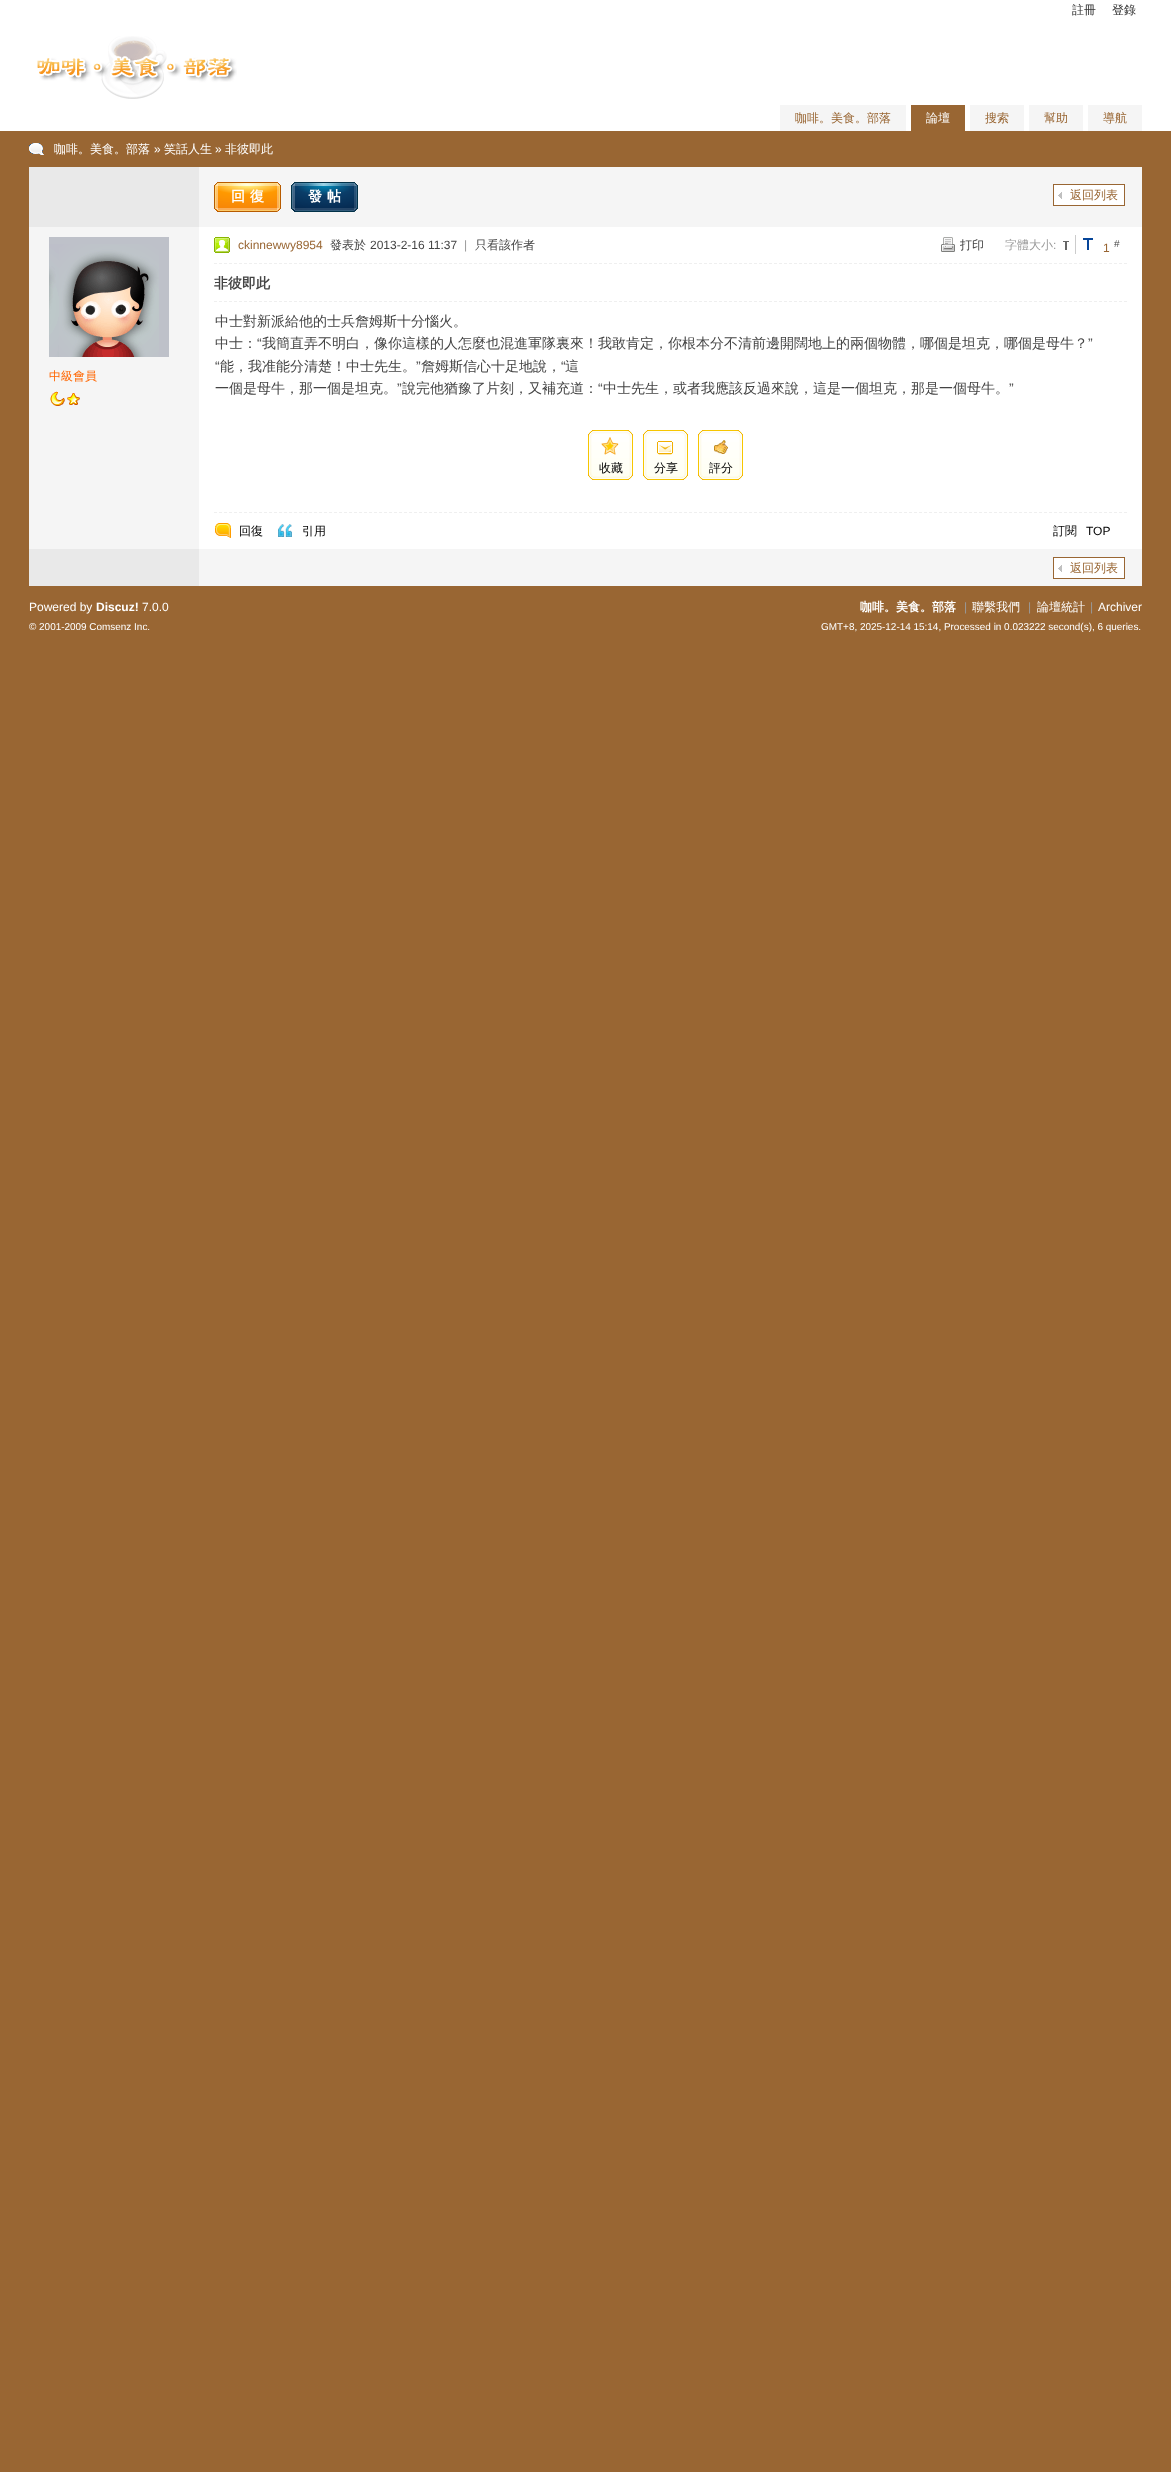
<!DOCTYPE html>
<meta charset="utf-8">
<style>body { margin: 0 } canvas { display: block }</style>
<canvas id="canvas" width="1171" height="2472"></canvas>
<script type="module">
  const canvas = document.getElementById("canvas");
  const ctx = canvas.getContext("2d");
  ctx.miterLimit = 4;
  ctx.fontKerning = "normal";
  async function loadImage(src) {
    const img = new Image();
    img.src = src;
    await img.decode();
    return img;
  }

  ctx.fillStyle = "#996633";
  ctx.fillRect(0, 0, 1171, 2472);
  ctx.fillStyle = "#ffffff";
  ctx.fillRect(0, 0, 1171, 131);
  ctx.font = "500 12px WenQuanYi Zen Hei";
  ctx.fillStyle = "#333333";
  ctx.fillText("註冊", 1072, 14);
  ctx.fillText("登錄", 1112, 14);
  ctx.drawImage(await loadImage("img1.png"), 37, 36, 200, 63);
  ctx.fillStyle = "#f5f5f5";
  ctx.fillRect(780, 105, 126, 26);
  ctx.fillStyle = "#996633";
  ctx.fillText("咖啡。美食。部落", 795, 122);
  ctx.fillRect(912, 106, 52, 25);
  ctx.fillRect(911, 105, 54, 1);
  ctx.fillRect(964, 105, 1, 27);
  ctx.fillRect(911, 105, 1, 27);
  ctx.fillStyle = "#ffffff";
  ctx.fillText("論壇", 926, 122);
  ctx.fillStyle = "#f5f5f5";
  ctx.fillRect(970, 105, 54, 26);
  ctx.fillStyle = "#996633";
  ctx.fillText("搜索", 985, 122);
  ctx.fillStyle = "#f5f5f5";
  ctx.fillRect(1029, 105, 54, 26);
  ctx.fillStyle = "#996633";
  ctx.fillText("幫助", 1044, 122);
  ctx.fillStyle = "#f5f5f5";
  ctx.fillRect(1088, 105, 54, 26);
  ctx.fillStyle = "#996633";
  ctx.fillText("導航", 1103, 122);
  ctx.drawImage(await loadImage("img2.png"), 29, 143, 15, 12);
  ctx.fillStyle = "#ffffff";
  ctx.fillText("咖啡。美食。部落", 54, 153);
  ctx.font = "12px Liberation Sans";
  ctx.fillText("»", 154, 153);
  ctx.font = "500 12px WenQuanYi Zen Hei";
  ctx.fillText("笑話人生", 164, 153);
  ctx.font = "12px Liberation Sans";
  ctx.fillText("»", 215, 153);
  ctx.font = "500 12px WenQuanYi Zen Hei";
  ctx.fillText("非彼即此", 225, 153);
  ctx.fillRect(199, 227, 943, 322);
  ctx.fillStyle = "#f5f5f5";
  ctx.fillRect(199, 167, 943, 60);
  ctx.fillStyle = "#e9e9e9";
  ctx.fillRect(29, 167, 170, 60);
  ctx.drawImage(await loadImage("img3.png"), 214, 182, 67, 30);
  ctx.letterSpacing = "5px";
  ctx.font = "bold 14px WenQuanYi Zen Hei";
  ctx.fillStyle = "#ffffff";
  ctx.fillText("回復", 231, 201);
  ctx.drawImage(await loadImage("img4.png"), 291, 182, 67, 30);
  ctx.fillText("發帖", 308, 201);
  ctx.fillRect(1054, 185, 70, 20);
  ctx.drawImage(await loadImage("img5.png"), 1058, 192, 4, 7);
  ctx.strokeStyle = "#996633";
  ctx.strokeRect(1053.5, 184.5, 71, 21);
  ctx.letterSpacing = "0px";
  ctx.font = "500 12px WenQuanYi Zen Hei";
  ctx.fillStyle = "#996633";
  ctx.fillText("返回列表", 1070, 199);
  ctx.fillStyle = "#f5f5f5";
  ctx.fillRect(29, 227, 170, 322);
  ctx.drawImage(await loadImage("img6.png"), 49, 237, 120, 120);
  ctx.fillStyle = "#ff6600";
  ctx.fillText("中級會員", 49, 380);
  ctx.drawImage(await loadImage("img7.png"), 50, 391, 15, 15);
  ctx.drawImage(await loadImage("img8.png"), 67, 393, 13, 12);
  ctx.beginPath();
  ctx.moveTo(214, 263.5);
  ctx.lineTo(1127, 263.5);
  ctx.strokeStyle = "#efefef";
  ctx.setLineDash([3, 2]);
  ctx.stroke();
  ctx.drawImage(await loadImage("img9.png"), 214, 237, 16, 16);
  ctx.font = "12px Liberation Sans";
  ctx.fillStyle = "#996633";
  ctx.fillText("ckinnewwy8954", 238, 249);
  ctx.font = "500 12px WenQuanYi Zen Hei";
  ctx.fillStyle = "#444444";
  ctx.fillText("發表於", 330, 249);
  ctx.font = "12px Liberation Sans";
  ctx.fillText("2013-2-16 11:37", 370, 249);
  ctx.fillStyle = "#999999";
  ctx.fillText("|", 464, 249);
  ctx.font = "500 12px WenQuanYi Zen Hei";
  ctx.fillStyle = "#444444";
  ctx.fillText("只看該作者", 475, 249);
  ctx.drawImage(await loadImage("img10.png"), 941, 237, 14, 15);
  ctx.fillText("打印", 960, 249);
  ctx.fillStyle = "#999999";
  ctx.fillText("字體大小", 1005, 249);
  ctx.font = "12px Liberation Sans";
  ctx.fillText(":", 1053, 249);
  ctx.drawImage(await loadImage("img11.png"), 1063, 235, 13, 19);
  ctx.drawImage(await loadImage("img12.png"), 1083, 238, 10, 12);
  ctx.fillStyle = "#996633";
  ctx.fillText("1", 1103, 252);
  ctx.font = "10px Liberation Sans";
  ctx.fillStyle = "#444444";
  ctx.fillText("#", 1114, 247);
  ctx.beginPath();
  ctx.moveTo(214, 301.5);
  ctx.lineTo(1127, 301.5);
  ctx.stroke();
  ctx.font = "bold 14px WenQuanYi Zen Hei";
  ctx.fillText("非彼即此", 214, 288);
  ctx.font = "500 14px WenQuanYi Zen Hei";
  ctx.fillText("中士對新派給他的士兵詹姆斯十分惱火。", 215, 326);
  ctx.fillText("中士：", 215, 348);
  ctx.font = "14px Liberation Sans";
  ctx.fillText("“", 257, 348);
  ctx.font = "500 14px WenQuanYi Zen Hei";
  ctx.fillText("我簡直弄不明白，像你這樣的人怎麼也混進軍隊裏來！我敢肯定，你根本分不清前邊開闊地上的兩個物體，哪個是坦克，哪個是母牛？", 262, 348);
  ctx.font = "14px Liberation Sans";
  ctx.fillText("”", 1088, 348);
  ctx.fillText("“", 215, 371);
  ctx.font = "500 14px WenQuanYi Zen Hei";
  ctx.fillText("能，我准能分清楚！中士先生。", 220, 371);
  ctx.font = "14px Liberation Sans";
  ctx.fillText("”", 416, 371);
  ctx.font = "500 14px WenQuanYi Zen Hei";
  ctx.fillText("詹姆斯信心十足地說，", 421, 371);
  ctx.font = "14px Liberation Sans";
  ctx.fillText("“", 561, 371);
  ctx.font = "500 14px WenQuanYi Zen Hei";
  ctx.fillText("這", 565, 371);
  ctx.fillText("一個是母牛，那一個是坦克。", 215, 393);
  ctx.font = "14px Liberation Sans";
  ctx.fillText("”", 397, 393);
  ctx.font = "500 14px WenQuanYi Zen Hei";
  ctx.fillText("說完他猶豫了片刻，又補充道：", 402, 393);
  ctx.font = "14px Liberation Sans";
  ctx.fillText("“", 598, 393);
  ctx.font = "500 14px WenQuanYi Zen Hei";
  ctx.fillText("中士先生，或者我應該反過來說，這是一個坦克，那是一個母牛。", 603, 393);
  ctx.font = "14px Liberation Sans";
  ctx.fillText("”", 1009, 393);
  ctx.drawImage(await loadImage("img13.png"), 588, 430, 45, 50);
  ctx.font = "500 12px WenQuanYi Zen Hei";
  ctx.fillStyle = "#000000";
  ctx.fillText("收藏", 599, 472);
  ctx.drawImage(await loadImage("img14.png"), 643, 430, 45, 50);
  ctx.fillText("分享", 654, 472);
  ctx.drawImage(await loadImage("img15.png"), 698, 430, 45, 50);
  ctx.fillText("評分", 709, 472);
  ctx.beginPath();
  ctx.moveTo(214, 512.5);
  ctx.lineTo(1127, 512.5);
  ctx.stroke();
  ctx.drawImage(await loadImage("img16.png"), 215, 523, 16, 15);
  ctx.fillText("回復", 239, 535);
  ctx.drawImage(await loadImage("img17.png"), 278, 524, 14, 13);
  ctx.fillText("引用", 302, 535);
  ctx.fillText("訂閱", 1053, 535);
  ctx.font = "12px Liberation Sans";
  ctx.fillText("TOP", 1086, 535);
  ctx.fillStyle = "#f5f5f5";
  ctx.fillRect(199, 549, 943, 37);
  ctx.fillStyle = "#e9e9e9";
  ctx.fillRect(29, 549, 170, 37);
  ctx.fillStyle = "#ffffff";
  ctx.fillRect(1054, 558, 70, 20);
  ctx.drawImage(await loadImage("img5.png"), 1058, 565, 4, 7);
  ctx.strokeStyle = "#996633";
  ctx.setLineDash([]);
  ctx.strokeRect(1053.5, 557.5, 71, 21);
  ctx.font = "500 12px WenQuanYi Zen Hei";
  ctx.fillStyle = "#996633";
  ctx.fillText("返回列表", 1070, 572);
  ctx.font = "12px Liberation Sans";
  ctx.fillStyle = "#ffffff";
  ctx.fillText("Powered by", 29, 611);
  ctx.font = "bold 12px Liberation Sans";
  ctx.fillText("Discuz!", 96, 611);
  ctx.font = "12px Liberation Sans";
  ctx.fillText("7.0.0", 142, 611);
  ctx.font = "9.95px Liberation Sans";
  ctx.fillText("© 2001-2009 Comsenz Inc.", 29, 630);
  ctx.font = "bold 12px WenQuanYi Zen Hei";
  ctx.fillText("咖啡。美食。部落", 860, 611);
  ctx.font = "12px Liberation Sans";
  ctx.fillStyle = "#999999";
  ctx.fillText("|", 964, 611);
  ctx.font = "500 12px WenQuanYi Zen Hei";
  ctx.fillStyle = "#ffffff";
  ctx.fillText("聯繫我們", 972, 611);
  ctx.font = "12px Liberation Sans";
  ctx.fillStyle = "#999999";
  ctx.fillText("|", 1028, 611);
  ctx.font = "500 12px WenQuanYi Zen Hei";
  ctx.fillStyle = "#ffffff";
  ctx.fillText("論壇統計", 1037, 611);
  ctx.font = "12px Liberation Sans";
  ctx.fillStyle = "#999999";
  ctx.fillText("|", 1090, 611);
  ctx.fillStyle = "#ffffff";
  ctx.fillText("Archiver", 1098, 611);
  ctx.font = "9.95px Liberation Sans";
  ctx.fillText("GMT+8, 2025-12-14 15:14, Processed in 0.023222 second(s), 6 queries.", 821, 630);
</script>
